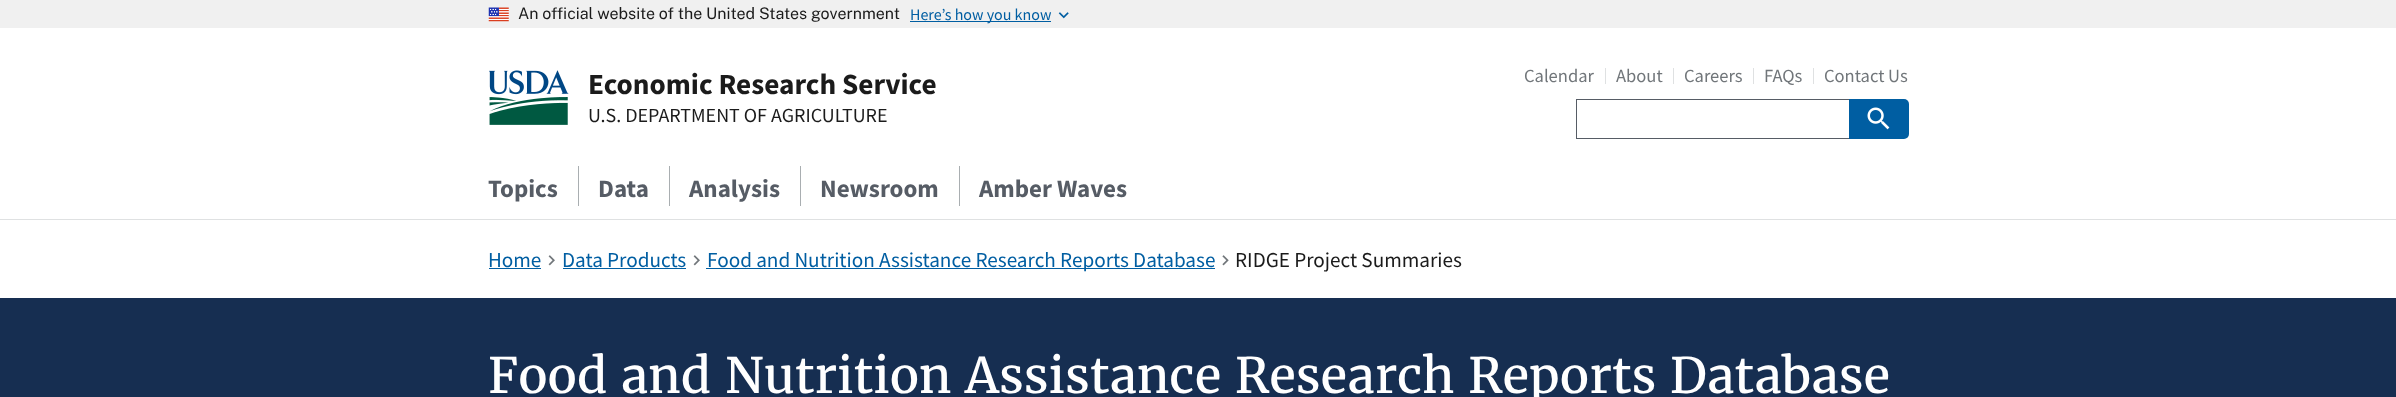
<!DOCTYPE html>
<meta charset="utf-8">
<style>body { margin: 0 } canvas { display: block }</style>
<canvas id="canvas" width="2396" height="397"></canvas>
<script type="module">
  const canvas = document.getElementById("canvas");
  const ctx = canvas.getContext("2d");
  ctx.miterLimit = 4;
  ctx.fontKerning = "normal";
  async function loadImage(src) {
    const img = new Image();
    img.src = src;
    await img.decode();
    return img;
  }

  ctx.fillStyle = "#ffffff";
  ctx.fillRect(0, 0, 2396, 397);
  ctx.fillStyle = "#f0f0f0";
  ctx.fillRect(0, 0, 2396, 28);
  ctx.drawImage(await loadImage("img1.png"), 488, 7, 21, 15);
  ctx.font = "16px Public Sans";
  ctx.fillStyle = "#1b1b1b";
  ctx.fillText("An official website of the United States government", 518, 19);
  ctx.fillStyle = "#005ea2";
  ctx.fillRect(910, 21, 141, 1);
  ctx.font = "16px Source Sans Pro";
  ctx.fillText("Here’s how you know", 910, 20);
  ctx.drawImage(await loadImage("img2.png"), 1058, 12, 11, 7);
  ctx.font = "18.5px Source Sans Pro";
  ctx.fillStyle = "#71767a";
  ctx.fillText("Calendar", 1524, 82);
  ctx.fillStyle = "#dfe1e2";
  ctx.fillRect(1605, 68, 1, 16);
  ctx.fillStyle = "#71767a";
  ctx.fillText("About", 1616, 82);
  ctx.fillStyle = "#dfe1e2";
  ctx.fillRect(1673, 68, 1, 16);
  ctx.fillStyle = "#71767a";
  ctx.fillText("Careers", 1684, 82);
  ctx.fillStyle = "#dfe1e2";
  ctx.fillRect(1753, 68, 1, 16);
  ctx.fillStyle = "#71767a";
  ctx.fillText("FAQs", 1764, 82);
  ctx.fillStyle = "#dfe1e2";
  ctx.fillRect(1813, 68, 1, 16);
  ctx.fillStyle = "#71767a";
  ctx.fillText("Contact Us", 1824, 82);
  ctx.fillStyle = "#565c65";
  ctx.fillRect(1576, 99, 273, 1);
  ctx.fillRect(1576, 138, 273, 1);
  ctx.fillRect(1576, 99, 1, 40);
  ctx.fillStyle = "#005ea2";
  ctx.beginPath();
  ctx.roundRect(1849, 99, 60, 40, [0, 5, 5, 0]);
  ctx.fill();
  ctx.drawImage(await loadImage("img3.png"), 1867, 107, 23, 23);
  ctx.font = "bold 25px Source Sans Pro";
  ctx.fillStyle = "#565c65";
  ctx.fillText("Topics", 488, 197);
  ctx.fillStyle = "#a9aeb1";
  ctx.fillRect(578, 166, 1, 40);
  ctx.fillStyle = "#565c65";
  ctx.fillText("Data", 598, 197);
  ctx.fillStyle = "#a9aeb1";
  ctx.fillRect(669, 166, 1, 40);
  ctx.fillStyle = "#565c65";
  ctx.fillText("Analysis", 689, 197);
  ctx.fillStyle = "#a9aeb1";
  ctx.fillRect(800, 166, 1, 40);
  ctx.fillStyle = "#565c65";
  ctx.fillText("Newsroom", 820, 197);
  ctx.fillStyle = "#a9aeb1";
  ctx.fillRect(959, 166, 1, 40);
  ctx.fillStyle = "#565c65";
  ctx.fillText("Amber Waves", 979, 197);
  ctx.drawImage(await loadImage("img4.png"), 489, 70, 80, 55);
  ctx.font = "bold 29.25px Source Sans Pro";
  ctx.fillStyle = "#1b1b1b";
  ctx.fillText("Economic Research Service", 588, 94);
  ctx.font = "20px Source Sans Pro";
  ctx.fillText("U.S. DEPARTMENT OF AGRICULTURE", 588, 122);
  ctx.fillStyle = "#dfe1e2";
  ctx.fillRect(0, 219, 2396, 1);
  ctx.font = "21.2px Source Sans Pro";
  ctx.fillStyle = "#005ea2";
  ctx.fillText("Home", 488, 267);
  ctx.fillRect(489, 268, 52, 1);
  ctx.drawImage(await loadImage("img5.png"), 548, 255, 7, 11);
  ctx.fillText("Data Products", 562, 267);
  ctx.fillRect(563, 268, 123, 1);
  ctx.drawImage(await loadImage("img5.png"), 693, 255, 7, 11);
  ctx.fillRect(706, 268, 509, 1);
  ctx.fillText("Food and Nutrition Assistance Research Reports Database", 707, 267);
  ctx.drawImage(await loadImage("img6.png"), 1222, 255, 7, 11);
  ctx.fillStyle = "#1b1b1b";
  ctx.fillText("RIDGE Project Summaries", 1235, 267);
  ctx.fillStyle = "#162e51";
  ctx.fillRect(0, 298, 2396, 99);
  ctx.font = "48.8px Merriweather";
  ctx.fillStyle = "#ffffff";
  ctx.fillText("Food and Nutrition Assistance Research Reports Database", 488, 393);
</script>
